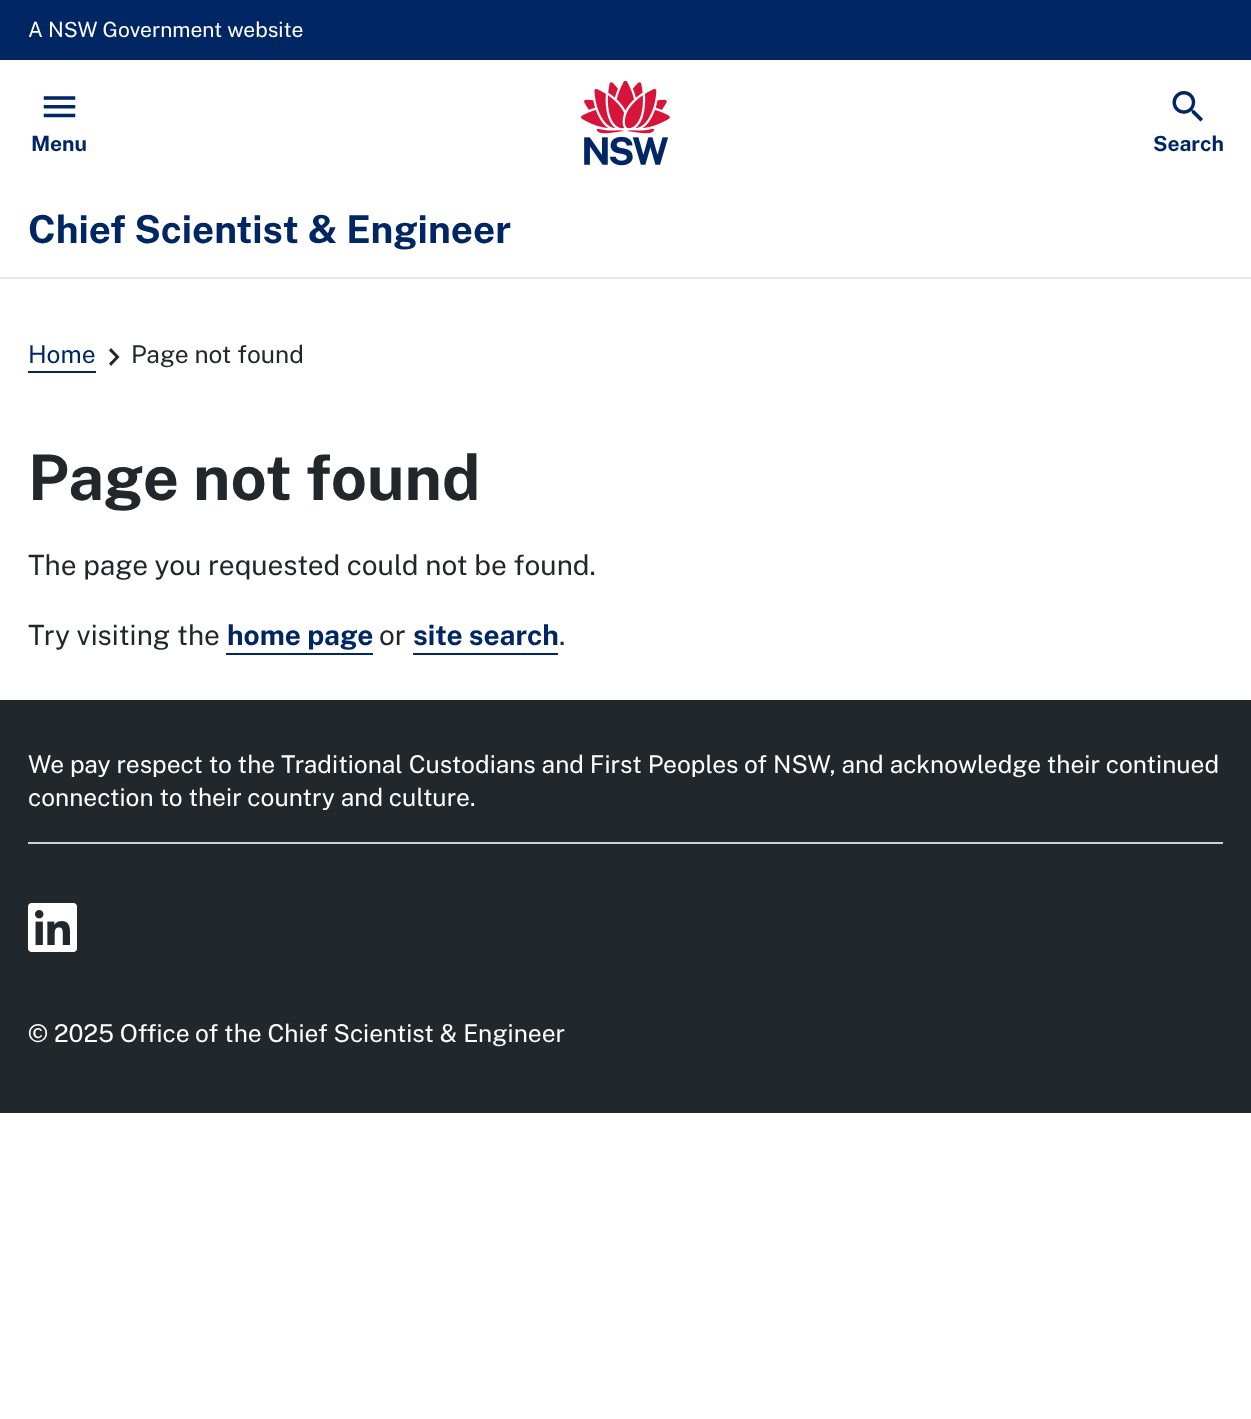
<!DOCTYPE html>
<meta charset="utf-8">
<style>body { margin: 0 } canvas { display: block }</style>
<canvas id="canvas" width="1251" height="1419"></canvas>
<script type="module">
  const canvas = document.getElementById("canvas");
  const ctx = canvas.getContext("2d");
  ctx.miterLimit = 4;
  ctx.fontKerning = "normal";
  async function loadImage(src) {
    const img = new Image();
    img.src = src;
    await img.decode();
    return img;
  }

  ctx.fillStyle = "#ffffff";
  ctx.fillRect(0, 0, 1251, 1419);
  ctx.fillStyle = "#002664";
  ctx.fillRect(0, 0, 1251, 60);
  ctx.font = "21px Public Sans";
  ctx.fillStyle = "#ffffff";
  ctx.fillText("A NSW Government website", 28, 37);
  ctx.fillStyle = "#ebebeb";
  ctx.fillRect(0, 277, 1251, 2);
  ctx.drawImage(await loadImage("img1.png"), 43, 96, 33, 22);
  ctx.font = "bold 21px Public Sans";
  ctx.fillStyle = "#002664";
  ctx.fillText("Menu", 31, 151);
  ctx.drawImage(await loadImage("img2.png"), 1172, 91, 31, 31);
  ctx.fillText("Search", 1153, 151);
  ctx.drawImage(await loadImage("img3.png"), 581, 81, 89, 85);
  ctx.font = "bold 38.5px Public Sans";
  ctx.fillText("Chief Scientist & Engineer", 28, 243);
  ctx.font = "24.5px Public Sans";
  ctx.fillText("Home", 28, 363);
  ctx.fillRect(28, 371, 68, 2);
  ctx.fillStyle = "#22272b";
  ctx.beginPath();
  ctx.moveTo(109, 363.5);
  ctx.lineTo(115.5, 357);
  ctx.lineTo(109, 350.5);
  ctx.lineTo(111, 348);
  ctx.lineTo(119.5, 357);
  ctx.lineTo(111, 366);
  ctx.closePath();
  ctx.fill();
  ctx.fillText("Page not found", 131, 363);
  ctx.font = "bold 63px Public Sans";
  ctx.fillText("Page not found", 28, 500);
  ctx.font = "28px Public Sans";
  ctx.fillText("The page you requested could not be found.", 28, 575);
  ctx.fillText("Try visiting the", 28, 645);
  ctx.font = "bold 28px Public Sans";
  ctx.fillStyle = "#002664";
  ctx.fillText("home page", 227, 645);
  ctx.fillRect(226, 653, 147, 2);
  ctx.font = "28px Public Sans";
  ctx.fillStyle = "#22272b";
  ctx.fillText("or", 379, 645);
  ctx.font = "bold 28px Public Sans";
  ctx.fillStyle = "#002664";
  ctx.fillText("site search", 413, 645);
  ctx.fillRect(413, 653, 145, 2);
  ctx.font = "28px Public Sans";
  ctx.fillStyle = "#22272b";
  ctx.fillText(".", 559, 645);
  ctx.fillRect(0, 700, 1251, 413);
  ctx.font = "24.5px Public Sans";
  ctx.fillStyle = "#ffffff";
  ctx.fillText("We pay respect to the Traditional Custodians and First Peoples of NSW, and acknowledge their continued", 28, 773);
  ctx.fillText("connection to their country and culture.", 28, 806);
  ctx.fillStyle = "#cdd3d6";
  ctx.fillRect(28, 842, 1195, 2);
  ctx.drawImage(await loadImage("img4.png"), 28, 903, 49, 49);
  ctx.fillStyle = "#ffffff";
  ctx.fillText("© 2025 Office of the Chief Scientist & Engineer", 28, 1042);
</script>
